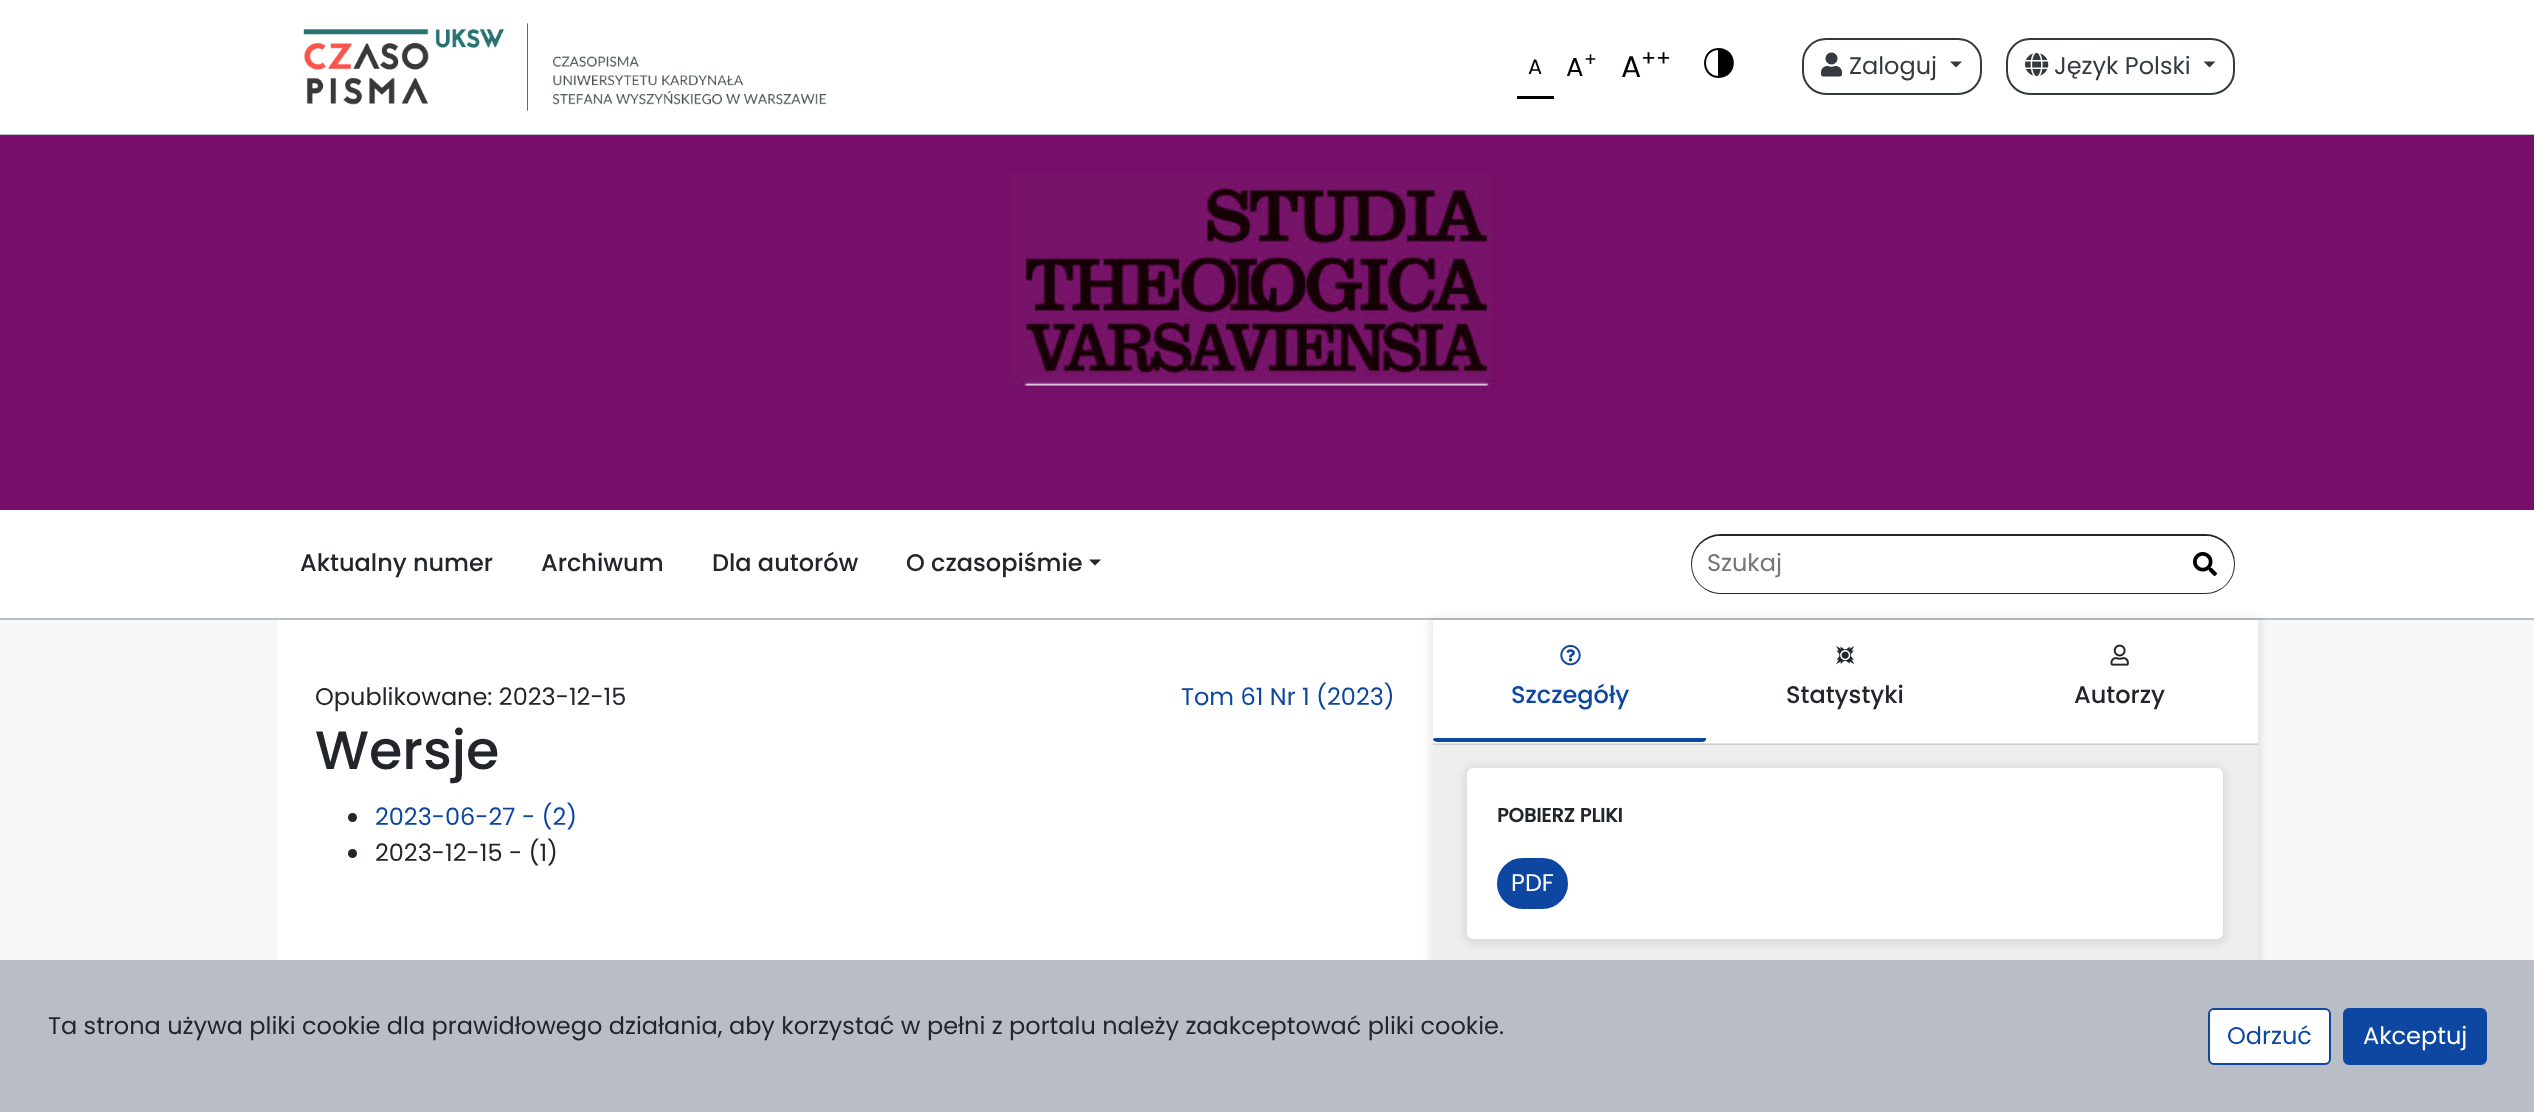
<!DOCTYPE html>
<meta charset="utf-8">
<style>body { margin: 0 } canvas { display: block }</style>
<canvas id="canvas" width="2534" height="1112"></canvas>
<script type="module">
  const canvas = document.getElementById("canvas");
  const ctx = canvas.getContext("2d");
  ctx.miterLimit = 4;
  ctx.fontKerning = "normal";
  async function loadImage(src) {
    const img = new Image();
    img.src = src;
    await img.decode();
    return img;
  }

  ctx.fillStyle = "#f7f8f8";
  ctx.fillRect(0, 0, 2534, 1112);
  ctx.fillStyle = "#ffffff";
  ctx.fillRect(0, 0, 2534, 134);
  ctx.fillStyle = "#b9bdc5";
  ctx.fillRect(0, 134, 2534, 1);
  ctx.drawImage(await loadImage("img1.png"), 303, 23, 523, 88);
  ctx.fillStyle = "#000000";
  ctx.fillRect(1517, 96, 37, 3);
  ctx.font = "21px Poppins";
  ctx.fillText("A", 1528, 74);
  ctx.font = "26px Poppins";
  ctx.fillText("A", 1566, 76);
  ctx.font = "19px Poppins";
  ctx.fillText("+", 1584, 66);
  ctx.font = "30px Poppins";
  ctx.fillText("A", 1621, 77);
  ctx.font = "22px Poppins";
  ctx.fillText("++", 1641, 66);
  ctx.beginPath();
  ctx.moveTo(1719, 78);
  ctx.lineTo(1718, 78);
  ctx.bezierCurveTo(1699.5, 77, 1699.5, 49, 1718, 48);
  ctx.bezierCurveTo(1739, 48, 1739, 77.5, 1719, 78);
  ctx.closePath();
  ctx.moveTo(1718, 76);
  ctx.lineTo(1718, 50);
  ctx.bezierCurveTo(1702, 51, 1702, 75, 1718, 76);
  ctx.closePath();
  ctx.fill();
  ctx.beginPath();
  ctx.roundRect(1803, 39, 178, 55, 23);
  ctx.strokeStyle = "#343a40";
  ctx.lineWidth = 2;
  ctx.stroke();
  ctx.drawImage(await loadImage("img2.png"), 1821, 52, 21, 25);
  ctx.font = "24px Poppins";
  ctx.fillStyle = "#343a40";
  ctx.fillText("Zaloguj", 1849, 74);
  ctx.beginPath();
  ctx.moveTo(1950, 61.5);
  ctx.lineTo(1962, 61.5);
  ctx.lineTo(1956, 67.5);
  ctx.closePath();
  ctx.fill();
  ctx.beginPath();
  ctx.roundRect(2007, 39, 227, 55, 23);
  ctx.stroke();
  ctx.drawImage(await loadImage("img3.png"), 2025, 52, 24, 25);
  ctx.fillText("Język Polski", 2054, 74);
  ctx.beginPath();
  ctx.moveTo(2203.5, 61.5);
  ctx.lineTo(2215.5, 61.5);
  ctx.lineTo(2209.5, 67.5);
  ctx.closePath();
  ctx.fill();
  ctx.fillStyle = "#770e6a";
  ctx.fillRect(0, 135, 2534, 375);
  ctx.drawImage(await loadImage("img4.png"), 1010, 173, 484, 216);
  ctx.fillStyle = "#ffffff";
  ctx.fillRect(0, 510, 2534, 108);
  ctx.fillStyle = "#b9bdc5";
  ctx.fillRect(0, 618, 2534, 2);
  ctx.font = "500 24px Poppins";
  ctx.fillStyle = "#22252a";
  ctx.fillText("Aktualny numer", 300, 571);
  ctx.fillText("Archiwum", 541, 571);
  ctx.fillText("Dla autorów", 712, 571);
  ctx.fillText("O czasopiśmie", 906, 571);
  ctx.beginPath();
  ctx.moveTo(1089, 559.5);
  ctx.lineTo(1101, 559.5);
  ctx.lineTo(1095, 565.5);
  ctx.closePath();
  ctx.fill();
  ctx.beginPath();
  ctx.roundRect(1692, 535, 542, 58, 29);
  ctx.strokeStyle = "#22252a";
  ctx.stroke();
  ctx.fillStyle = "#ffffff";
  ctx.beginPath();
  ctx.roundRect(1692, 536, 542, 57, 28.5);
  ctx.fill();
  ctx.font = "24px Poppins";
  ctx.fillStyle = "#757575";
  ctx.fillText("Szukaj", 1707, 571);
  ctx.drawImage(await loadImage("img5.png"), 2193, 552, 24, 24);
  ctx.fillStyle = "#ffffff";
  ctx.fillRect(278, 620, 1155, 340);
  ctx.fillStyle = "#22252a";
  ctx.fillText("Opublikowane: 2023-12-15", 315, 705);
  ctx.font = "500 54px Poppins";
  ctx.fillText("Wersje", 315, 769);
  ctx.beginPath();
  ctx.arc(352.5, 817.5, 4.5, 0, Math.PI * 2);
  ctx.fill();
  ctx.font = "24px Poppins";
  ctx.fillStyle = "#0d47a1";
  ctx.fillText("2023-06-27 - (2)", 375, 825);
  ctx.fillStyle = "#22252a";
  ctx.beginPath();
  ctx.arc(352.5, 853.5, 4.5, 0, Math.PI * 2);
  ctx.fill();
  ctx.fillText("2023-12-15 - (1)", 375, 861);
  ctx.fillStyle = "#0d47a1";
  ctx.fillText("Tom 61 Nr 1 (2023)", 1181, 705);
  ctx.fillStyle = "rgba(34, 37, 42, 0.1)";
  ctx.filter = "blur(4px)";
  ctx.beginPath();
  ctx.rect(1430, 618, 831, 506);
  ctx.fill();
  ctx.filter = "none";
  ctx.fillStyle = "#eeeeee";
  ctx.fillRect(1433, 744, 825, 216);
  ctx.fillStyle = "#ffffff";
  ctx.fillRect(1433, 620, 825, 124);
  ctx.fillStyle = "rgba(0, 0, 0, 0.12)";
  ctx.fillRect(1433, 743, 825, 2);
  ctx.fillStyle = "#0d47a1";
  ctx.beginPath();
  ctx.moveTo(1706, 740);
  ctx.bezierCurveTo(1705, 741, 1704, 742, 1702, 742);
  ctx.lineTo(1437, 742);
  ctx.bezierCurveTo(1436, 742, 1434, 741, 1433, 740);
  ctx.lineTo(1434, 738);
  ctx.lineTo(1706, 738);
  ctx.closePath();
  ctx.fill();
  ctx.drawImage(await loadImage("img6.png"), 1560, 645, 21, 21);
  ctx.font = "500 24px Poppins";
  ctx.fillText("Szczegóły", 1511, 703);
  ctx.drawImage(await loadImage("img7.png"), 1836, 646, 19, 19);
  ctx.fillStyle = "#22252a";
  ctx.fillText("Statystyki", 1786, 703);
  ctx.drawImage(await loadImage("img8.png"), 2110, 644, 19, 22);
  ctx.fillText("Autorzy", 2074, 703);
  ctx.fillStyle = "rgba(34, 37, 42, 0.1)";
  ctx.filter = "blur(4px)";
  ctx.beginPath();
  ctx.roundRect(1464, 767, 762, 177, 9);
  ctx.fill();
  ctx.filter = "none";
  ctx.fillStyle = "#ffffff";
  ctx.beginPath();
  ctx.roundRect(1467, 768, 756, 171, 6);
  ctx.fill();
  ctx.font = "bold 19.5px Poppins";
  ctx.fillStyle = "#22252a";
  ctx.fillText("POBIERZ PLIKI", 1497, 822);
  ctx.fillStyle = "#0d47a1";
  ctx.beginPath();
  ctx.roundRect(1498, 859, 69, 49, 24.5);
  ctx.fill();
  ctx.strokeStyle = "#0d47a1";
  ctx.stroke();
  ctx.font = "24px Poppins";
  ctx.fillStyle = "#ffffff";
  ctx.fillText("PDF", 1511, 891);
  ctx.fillStyle = "#b9bdc5";
  ctx.fillRect(0, 960, 2534, 152);
  ctx.fillStyle = "#22252a";
  ctx.fillText("Ta strona używa pliki cookie dla prawidłowego działania, aby korzystać w pełni z portalu należy zaakceptować pliki cookie.", 48, 1034);
  ctx.fillStyle = "#ffffff";
  ctx.beginPath();
  ctx.roundRect(2209, 1009, 121, 55, 5);
  ctx.fill();
  ctx.stroke();
  ctx.fillStyle = "#0d47a1";
  ctx.fillText("Odrzuć", 2227, 1044);
  ctx.beginPath();
  ctx.roundRect(2344, 1009, 142, 55, 5);
  ctx.fill();
  ctx.stroke();
  ctx.fillStyle = "#ffffff";
  ctx.fillText("Akceptuj", 2363, 1044);
</script>
